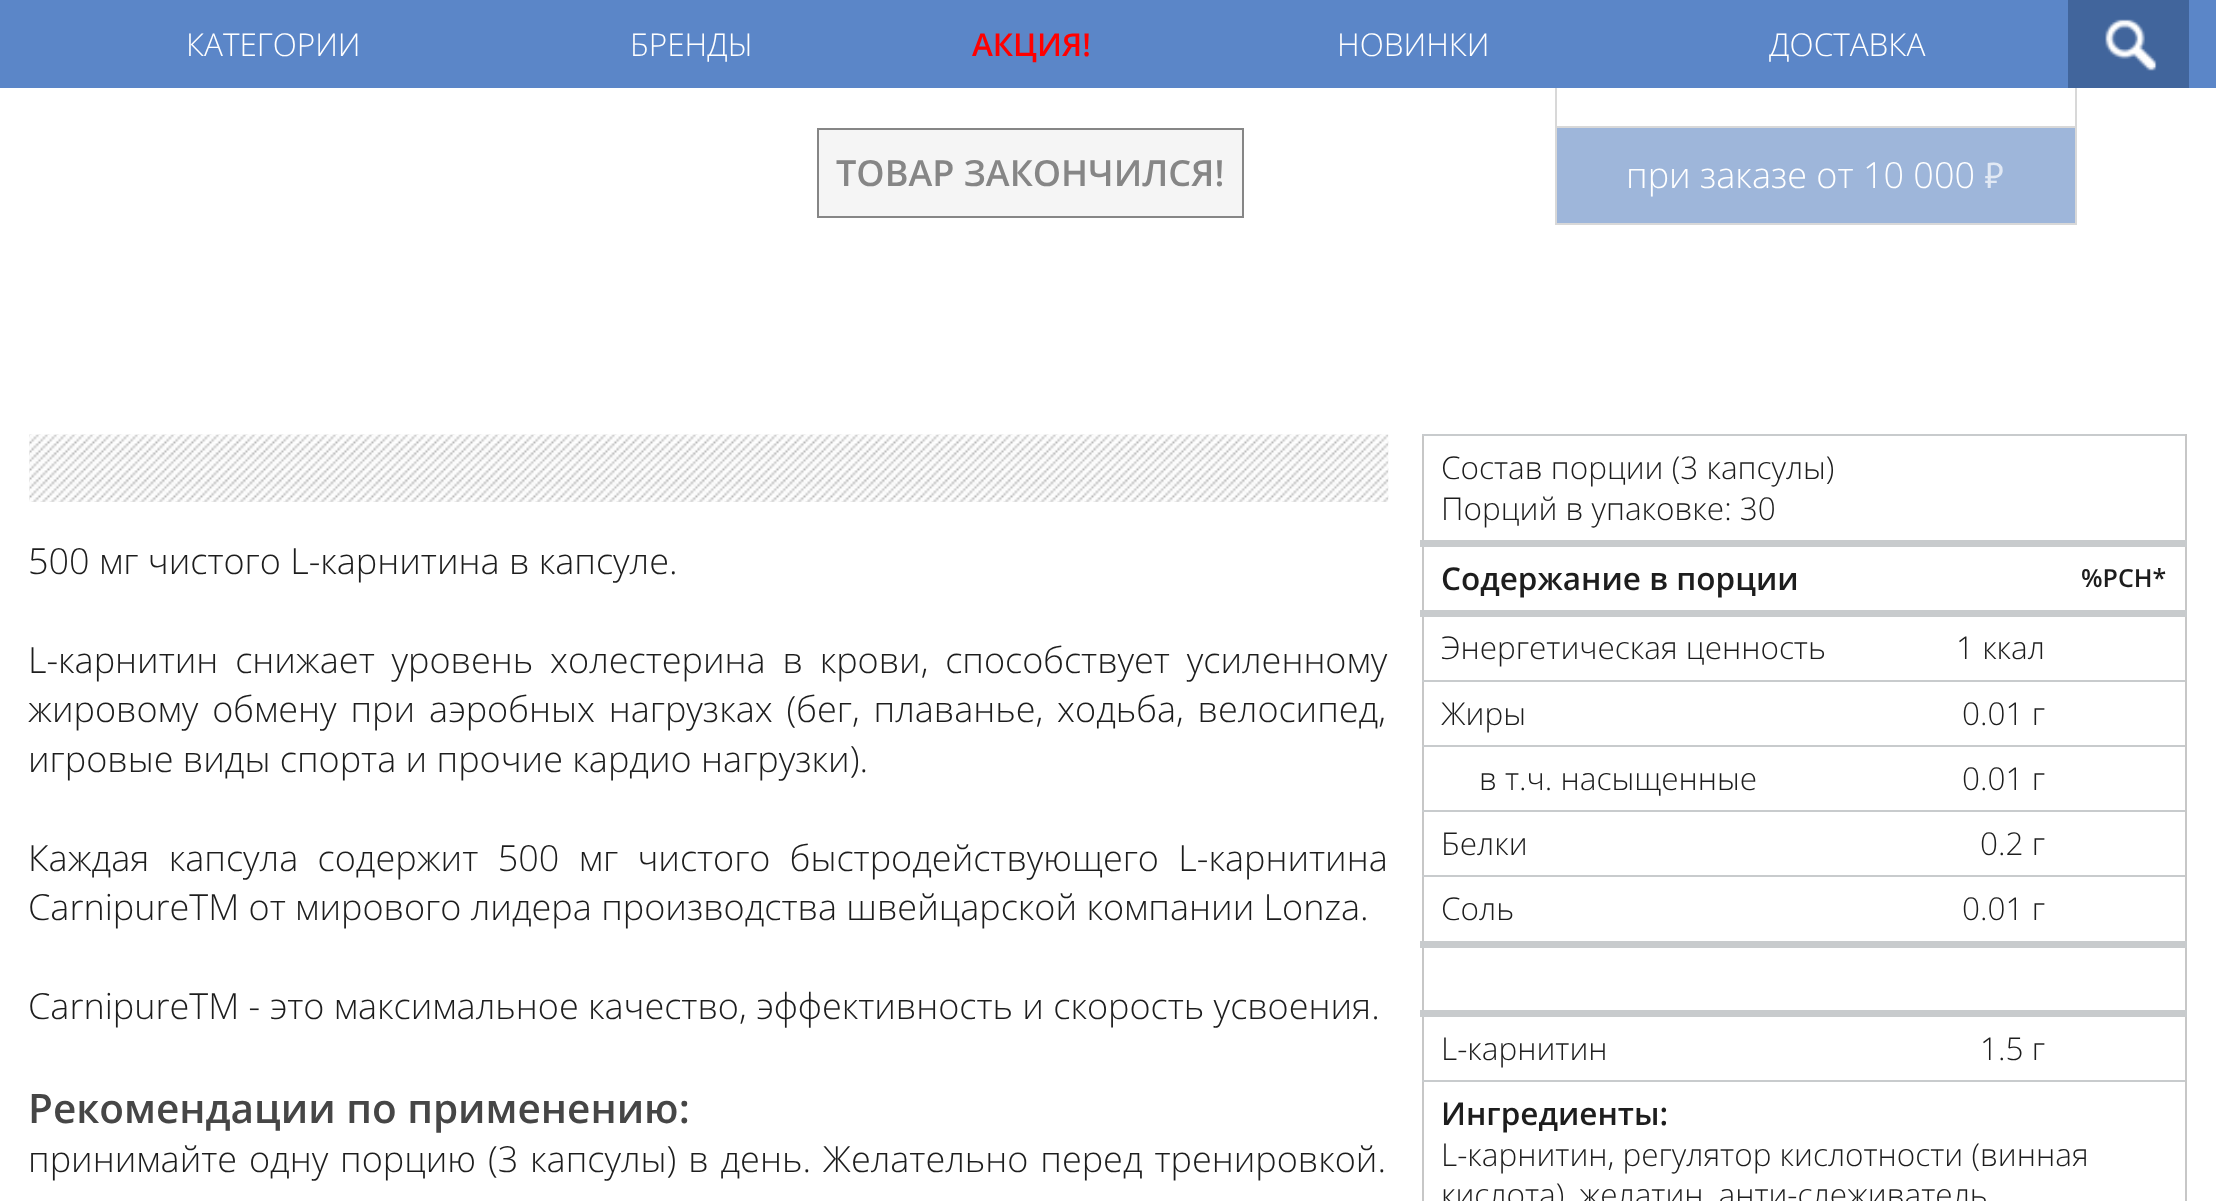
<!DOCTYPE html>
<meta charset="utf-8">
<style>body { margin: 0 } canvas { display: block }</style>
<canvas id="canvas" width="2216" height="1201"></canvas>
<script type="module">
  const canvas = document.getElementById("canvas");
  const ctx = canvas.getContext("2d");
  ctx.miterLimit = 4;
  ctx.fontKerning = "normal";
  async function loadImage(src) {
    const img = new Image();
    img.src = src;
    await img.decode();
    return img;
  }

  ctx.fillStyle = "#ffffff";
  ctx.fillRect(0, 0, 2216, 1201);
  ctx.strokeStyle = "#d8d8d8";
  ctx.lineWidth = 2;
  ctx.strokeRect(1556, -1, 520, 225);
  ctx.fillStyle = "#5b86c8";
  ctx.fillRect(0, 0, 2216, 88);
  ctx.font = "300 31.5px Open Sans";
  ctx.fillStyle = "#ffffff";
  ctx.fillText("КАТЕГОРИИ", 186, 56);
  ctx.fillText("БРЕНДЫ", 630, 56);
  ctx.font = "600 31.5px Open Sans";
  ctx.fillStyle = "#ff0000";
  ctx.fillText("АКЦИЯ!", 972, 56);
  ctx.font = "300 31.5px Open Sans";
  ctx.fillStyle = "#ffffff";
  ctx.fillText("НОВИНКИ", 1337, 56);
  ctx.fillText("ДОСТАВКА", 1769, 56);
  ctx.fillStyle = "#41659c";
  ctx.fillRect(2068, 0, 121, 88);
  ctx.drawImage(await loadImage("img1.png"), 2105, 19, 52, 52);
  ctx.fillStyle = "#f5f5f5";
  ctx.beginPath();
  ctx.rect(818, 129, 425, 88);
  ctx.fill();
  ctx.strokeStyle = "#868686";
  ctx.stroke();
  ctx.font = "600 36px Open Sans";
  ctx.fillStyle = "#868686";
  ctx.fillText("ТОВАР ЗАКОНЧИЛСЯ!", 836, 186);
  ctx.fillStyle = "#9eb6da";
  ctx.fillRect(1557, 128, 518, 95);
  ctx.fillStyle = "#d8d8d8";
  ctx.fillRect(1557, 126, 518, 2);
  ctx.font = "300 36px Open Sans";
  ctx.fillStyle = "#ffffff";
  ctx.fillText("при заказе от 10 000", 1626, 188);
  ctx.font = "36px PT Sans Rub";
  ctx.fillStyle = "#e2e9f4";
  ctx.fillText("руб.", 1984, 188);
  ctx.drawImage(await loadImage("img2.png"), 29, 434, 1360, 68);
  ctx.font = "300 36px Open Sans";
  ctx.fillStyle = "#1d1d1d";
  ctx.fillText("500 мг чистого L-карнитина в капсуле.", 28, 574);
  ctx.wordSpacing = "7.5px";
  ctx.fillText("L-карнитин снижает уровень холестерина в крови, способствует усиленному", 28, 673);
  ctx.wordSpacing = "4.5px";
  ctx.fillText("жировому обмену при аэробных нагрузках (бег, плаванье, ходьба, велосипед,", 28, 722);
  ctx.wordSpacing = "0px";
  ctx.fillText("игровые виды спорта и прочие кардио нагрузки).", 28, 772);
  ctx.wordSpacing = "10px";
  ctx.fillText("Каждая капсула содержит 500 мг чистого быстродействующего L-карнитина", 28, 871);
  ctx.wordSpacing = "0px";
  ctx.fillText("CarnipureTM от мирового лидера производства швейцарской компании Lonza.", 28, 920);
  ctx.fillText("CarnipureTM - это максимальное качество, эффективность и скорость усвоения.", 28, 1019);
  ctx.font = "600 40.5px Open Sans";
  ctx.fillStyle = "#464646";
  ctx.fillText("Рекомендации по применению:", 28, 1123);
  ctx.wordSpacing = "2.5px";
  ctx.font = "300 36px Open Sans";
  ctx.fillStyle = "#1d1d1d";
  ctx.fillText("принимайте одну порцию (3 капсулы) в день. Желательно перед тренировкой.", 28, 1172);
  ctx.fillStyle = "#c7c7c7";
  ctx.fillRect(2185, 434, 2, 767);
  ctx.fillRect(1422, 434, 2, 767);
  ctx.fillStyle = "#c8cbcd";
  ctx.fillRect(1420, 540, 767, 7);
  ctx.fillRect(1422, 434, 763, 2);
  ctx.wordSpacing = "0px";
  ctx.font = "300 31.5px Open Sans";
  ctx.fillStyle = "#1d1d1d";
  ctx.fillText("Состав порции (3 капсулы)", 1441, 479);
  ctx.fillText("Порций в упаковке: 30", 1441, 520);
  ctx.fillStyle = "#c8cbcd";
  ctx.fillRect(1420, 610, 767, 7);
  ctx.font = "600 31.5px Open Sans";
  ctx.fillStyle = "#1d1d1d";
  ctx.fillText("Содержание в порции", 1441, 590);
  ctx.font = "600 25px Open Sans";
  ctx.fillText("%РСН*", 2081, 587);
  ctx.font = "300 31.5px Open Sans";
  ctx.fillText("Энергетическая ценность", 1441, 659);
  ctx.fillText("1 ккал", 1956, 659);
  ctx.fillStyle = "#c8cbcd";
  ctx.fillRect(1422, 680, 763, 2);
  ctx.fillStyle = "#1d1d1d";
  ctx.fillText("Жиры", 1441, 725);
  ctx.fillText("0.01 г", 1962, 725);
  ctx.fillStyle = "#c8cbcd";
  ctx.fillRect(1422, 745, 763, 2);
  ctx.fillStyle = "#1d1d1d";
  ctx.fillText("в т.ч. насыщенные", 1479, 790);
  ctx.fillText("0.01 г", 1962, 790);
  ctx.fillStyle = "#c8cbcd";
  ctx.fillRect(1422, 810, 763, 2);
  ctx.fillStyle = "#1d1d1d";
  ctx.fillText("Белки", 1441, 855);
  ctx.fillText("0.2 г", 1980, 855);
  ctx.fillStyle = "#c8cbcd";
  ctx.fillRect(1422, 875, 763, 2);
  ctx.fillStyle = "#1d1d1d";
  ctx.fillText("Соль", 1441, 920);
  ctx.fillText("0.01 г", 1962, 920);
  ctx.fillStyle = "#c8cbcd";
  ctx.fillRect(1420, 941, 767, 7);
  ctx.fillRect(1420, 1010, 767, 7);
  ctx.fillStyle = "#1d1d1d";
  ctx.fillText("L-карнитин", 1441, 1060);
  ctx.fillText("1.5 г", 1980, 1060);
  ctx.fillStyle = "#c8cbcd";
  ctx.fillRect(1422, 1080, 763, 2);
  ctx.font = "600 31.5px Open Sans";
  ctx.fillStyle = "#1d1d1d";
  ctx.fillText("Ингредиенты:", 1441, 1125);
  ctx.font = "300 31.5px Open Sans";
  ctx.fillText("L-карнитин, регулятор кислотности (винная", 1441, 1166);
  ctx.fillText("кислота), желатин, анти-слеживатель", 1441, 1206);
</script>
